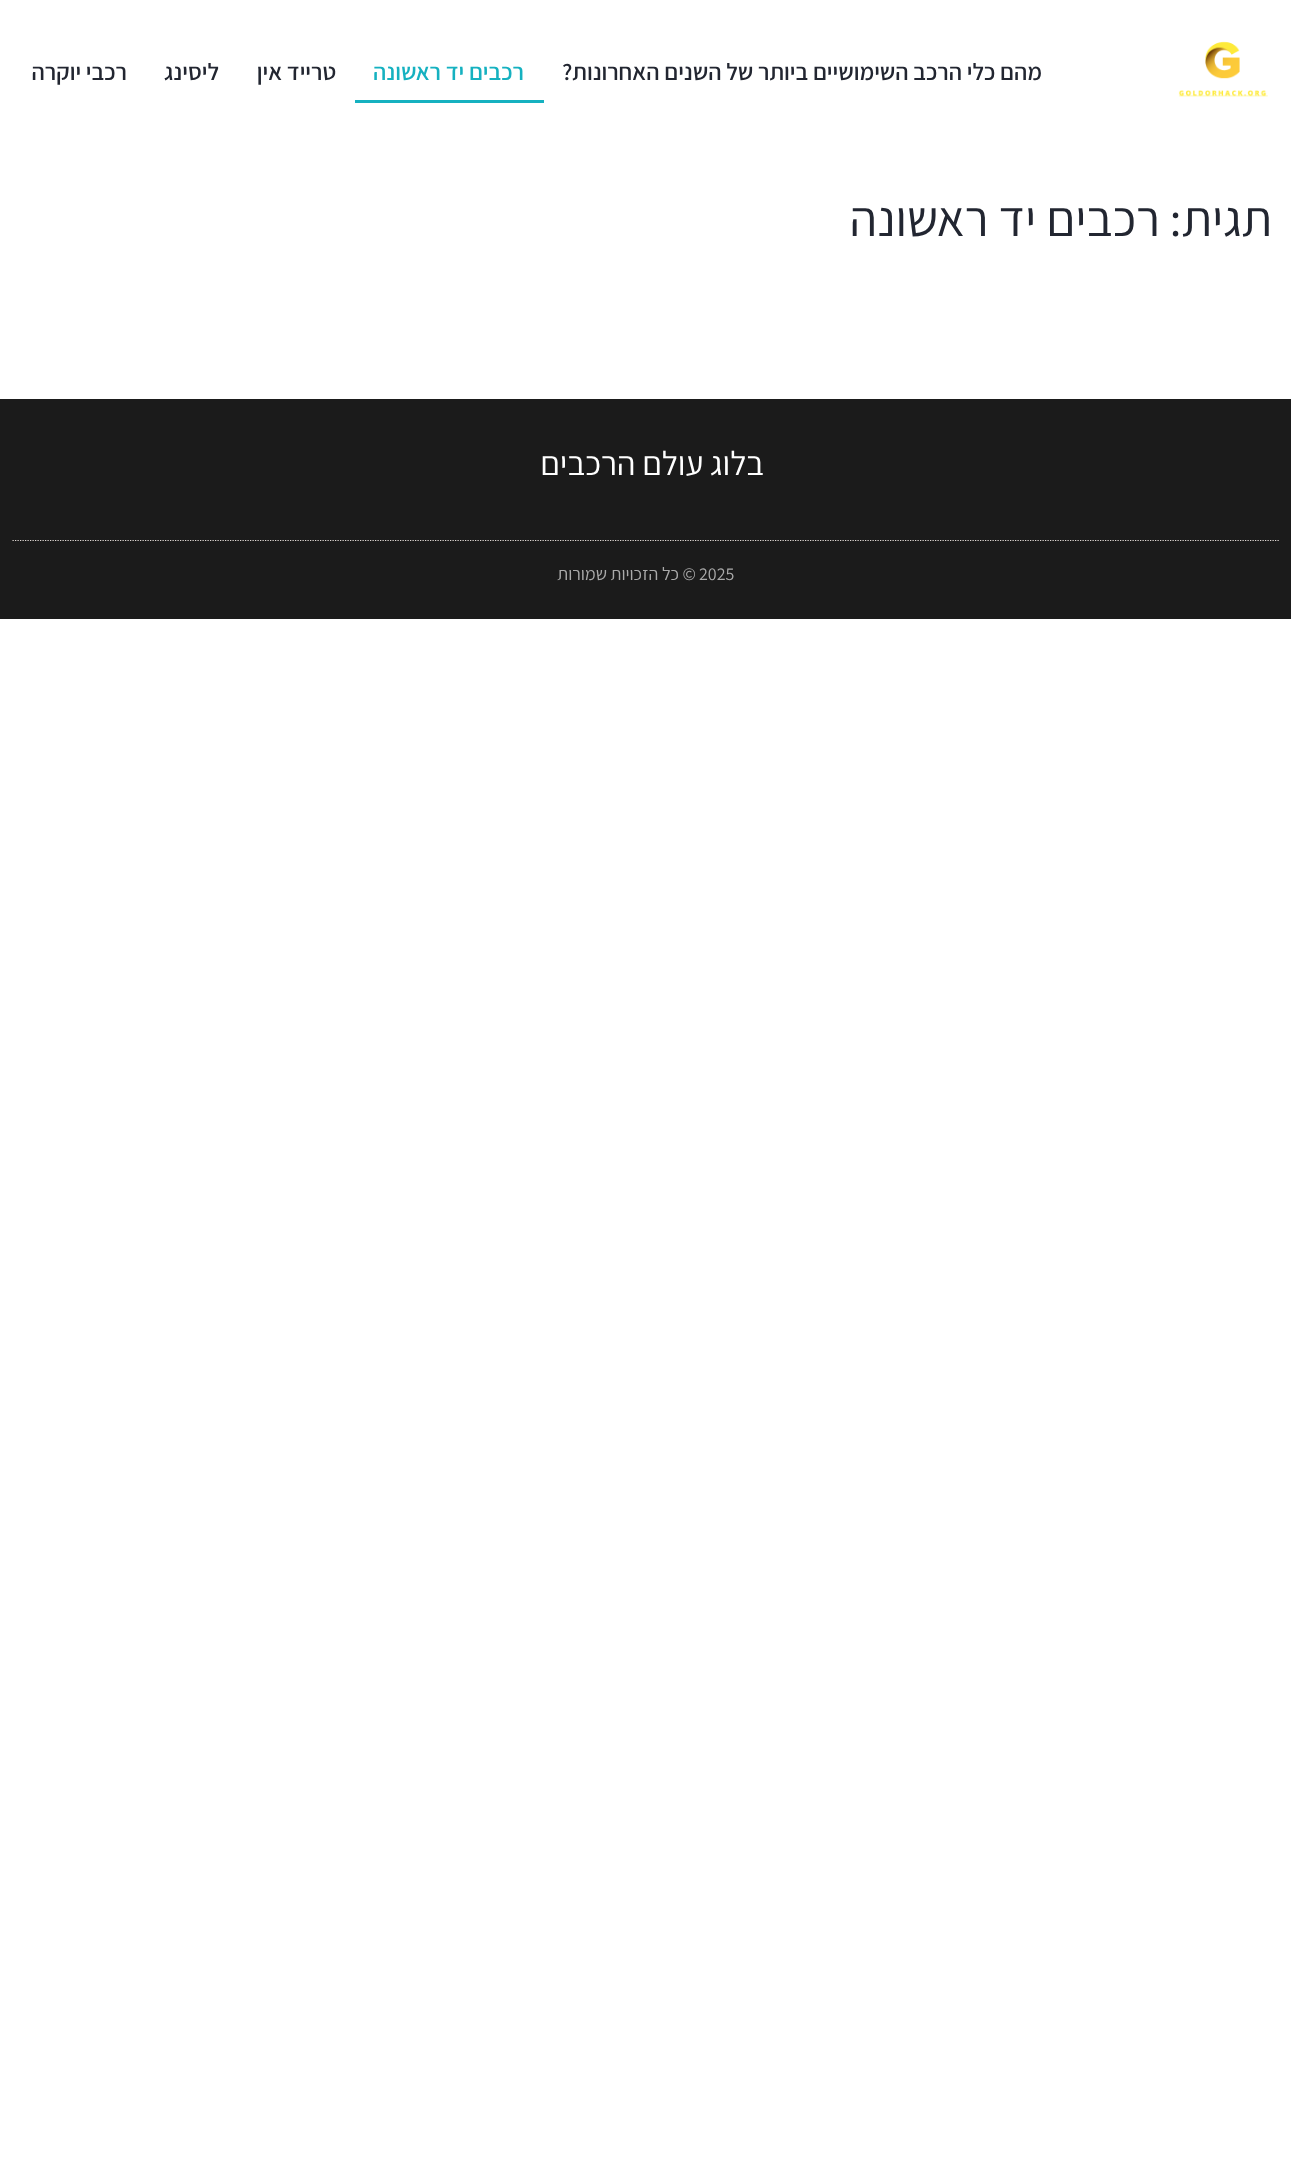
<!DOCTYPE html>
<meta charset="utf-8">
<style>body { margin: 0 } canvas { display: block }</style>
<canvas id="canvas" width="1291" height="2159"></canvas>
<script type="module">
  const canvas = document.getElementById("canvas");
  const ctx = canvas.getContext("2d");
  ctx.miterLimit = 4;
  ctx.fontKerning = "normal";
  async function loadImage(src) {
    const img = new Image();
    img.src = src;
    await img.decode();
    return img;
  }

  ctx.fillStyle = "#ffffff";
  ctx.fillRect(0, 0, 1291, 2159);
  ctx.drawImage(await loadImage("img1.png"), 1178, 41, 90, 56);
  ctx.direction = "rtl";
  ctx.font = "600 23.75px Assistant";
  ctx.fillStyle = "#222631";
  ctx.fillText("מהם כלי הרכב השימושיים ביותר של השנים האחרונות?", 1042, 80);
  ctx.fillStyle = "#15b1c0";
  ctx.fillText("רכבים יד ראשונה", 524, 80);
  ctx.fillRect(355, 100, 189, 3);
  ctx.fillStyle = "#222631";
  ctx.fillText("טרייד אין", 336, 80);
  ctx.fillText("ליסינג", 219, 80);
  ctx.fillText("רכבי יוקרה", 127, 80);
  ctx.font = "50px Assistant";
  ctx.fillText("תגית:", 1272, 236);
  ctx.fillText("רכבים יד ראשונה", 1160, 236);
  ctx.fillStyle = "#1b1b1b";
  ctx.fillRect(0, 399, 1291, 220);
  ctx.font = "33.75px Assistant";
  ctx.fillStyle = "#ffffff";
  ctx.fillText("בלוג עולם הרכבים", 764, 475);
  ctx.beginPath();
  ctx.moveTo(12.5, 540.5);
  ctx.lineTo(1279, 540.5);
  ctx.strokeStyle = "#e2dad6";
  ctx.lineWidth = 1.2;
  ctx.setLineDash([1.25, 1.25]);
  ctx.stroke();
  ctx.direction = "ltr";
  ctx.font = "18px Assistant";
  ctx.fillStyle = "#aaaaaa";
  ctx.fillText("2025", 699, 580);
  ctx.direction = "rtl";
  ctx.fillText("© כל הזכויות שמורות", 696, 580);
</script>
